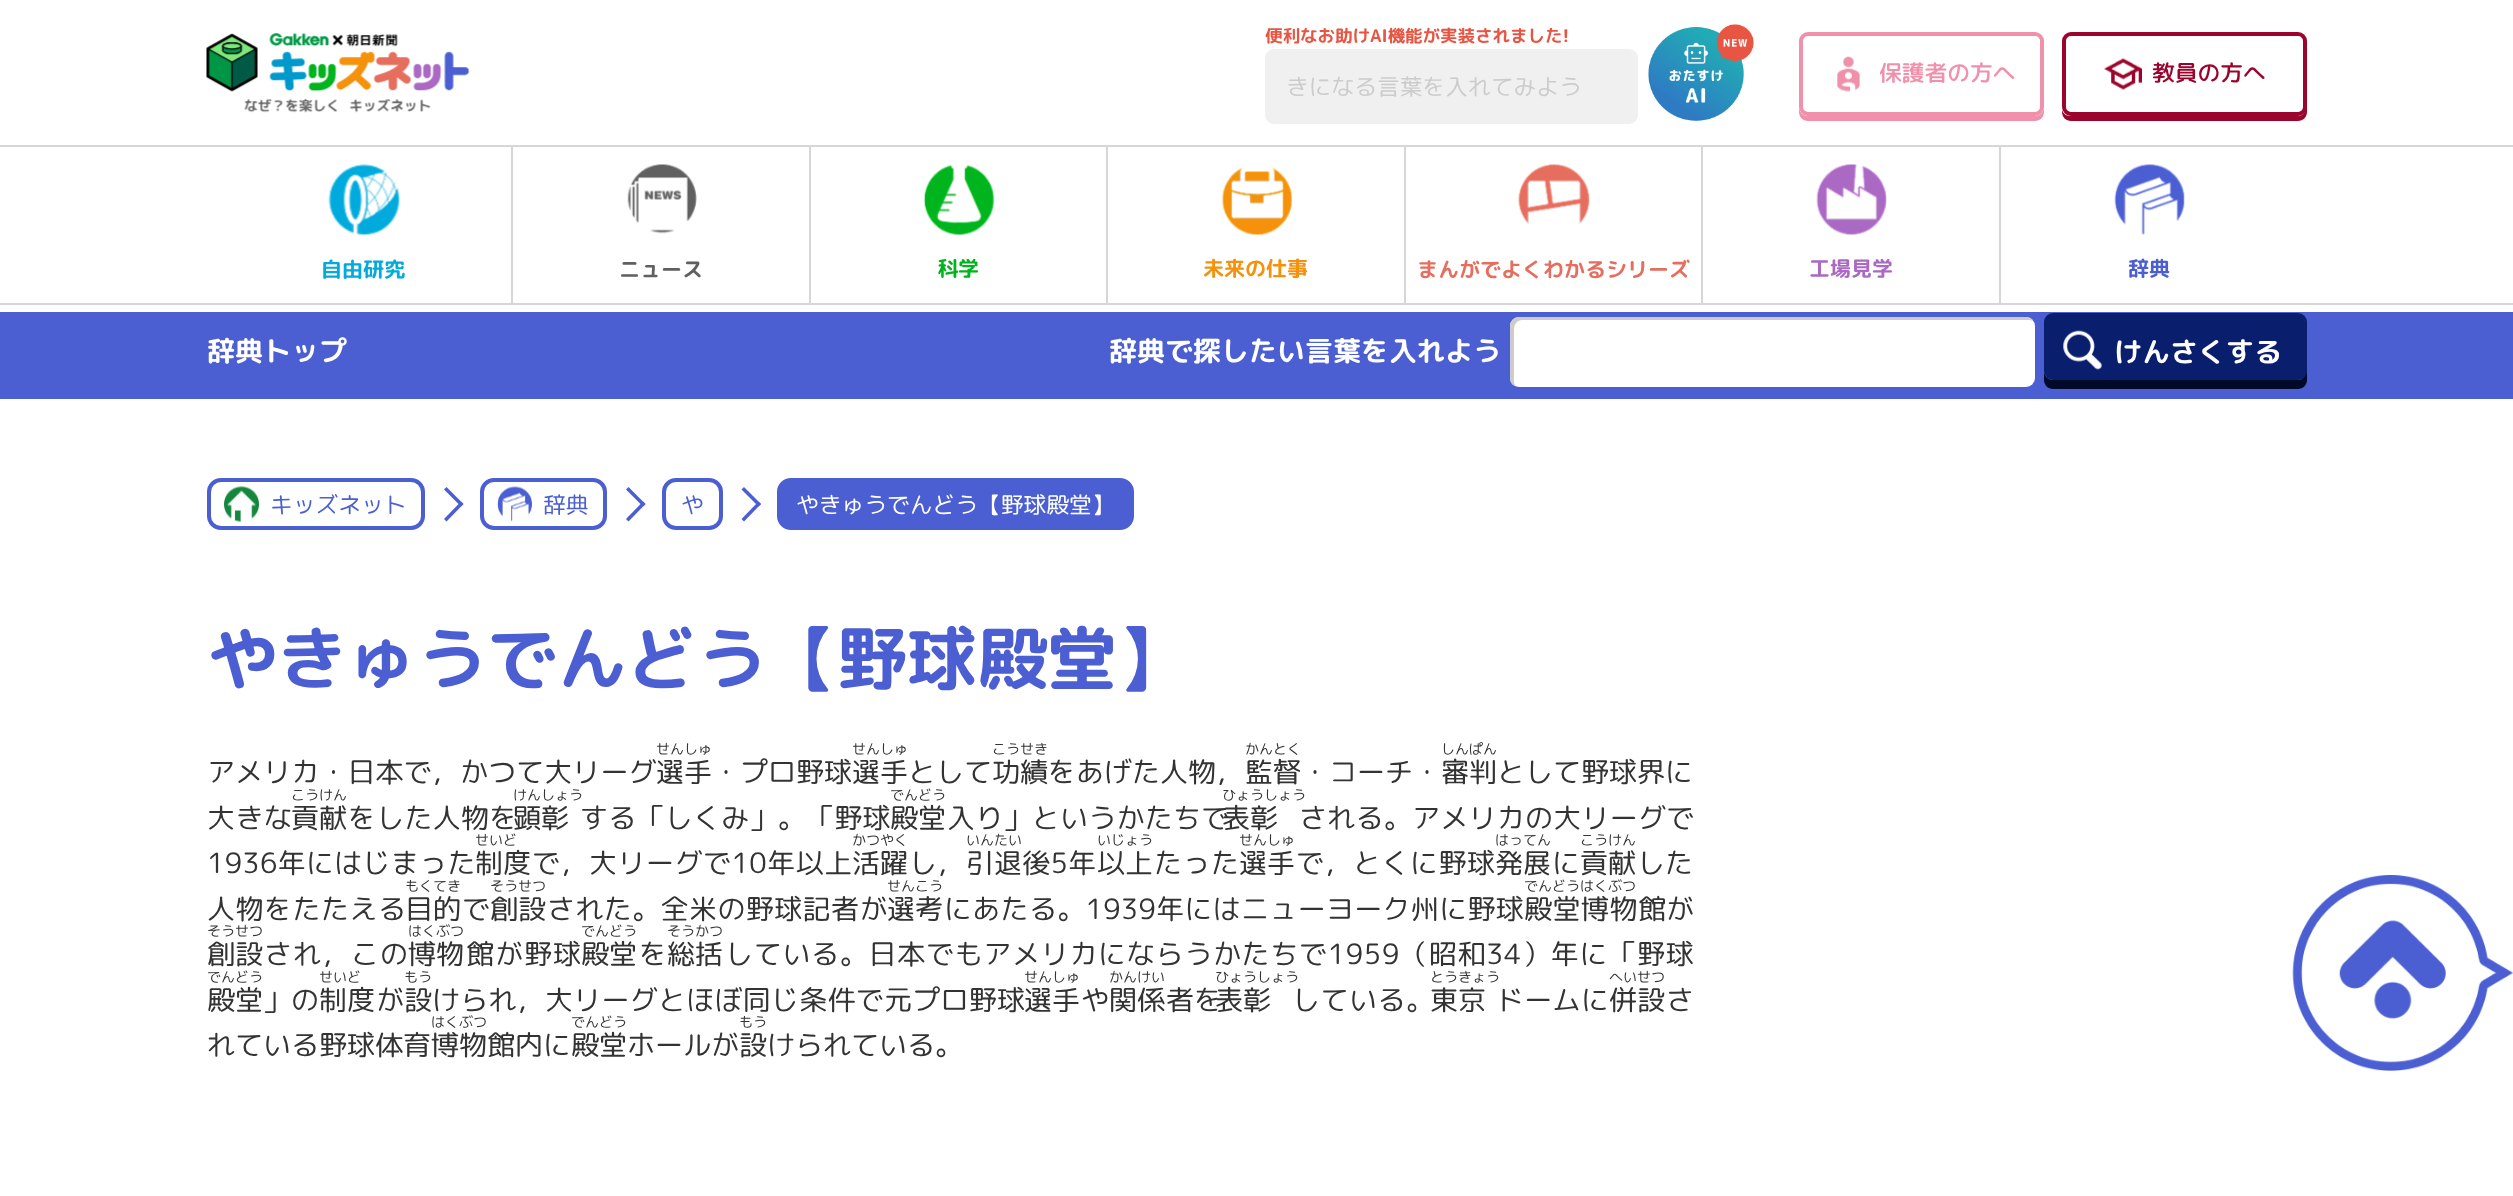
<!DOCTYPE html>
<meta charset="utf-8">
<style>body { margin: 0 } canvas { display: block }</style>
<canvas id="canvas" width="2513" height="1196"></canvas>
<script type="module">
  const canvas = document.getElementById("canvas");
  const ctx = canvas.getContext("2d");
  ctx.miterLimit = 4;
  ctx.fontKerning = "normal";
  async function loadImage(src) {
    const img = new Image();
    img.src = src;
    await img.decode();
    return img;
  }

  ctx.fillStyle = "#ffffff";
  ctx.fillRect(0, 0, 2513, 1196);
  ctx.drawImage(await loadImage("img1.png"), 206, 33, 264, 80);
  ctx.font = "bold 17.5px 'Rounded Mplus 1c Bold'";
  ctx.fillStyle = "#e85643";
  ctx.fillText("便利なお助けAI機能が実装されました!", 1265, 42);
  ctx.fillStyle = "#f1f0f0";
  ctx.beginPath();
  ctx.roundRect(1265, 49, 373, 75, 9);
  ctx.fill();
  ctx.font = "22.75px 'Rounded Mplus 1c'";
  ctx.fillStyle = "#cccccc";
  ctx.fillText("きになる言葉を入れてみよう", 1286, 95);
  ctx.drawImage(await loadImage("img2.png"), 1648, 24, 106, 97);
  ctx.fillStyle = "#f090aa";
  ctx.beginPath();
  ctx.moveTo(1799, 107);
  ctx.lineTo(1799, 112);
  ctx.bezierCurveTo(1799, 117, 1803, 121, 1808, 121);
  ctx.lineTo(2035, 121);
  ctx.bezierCurveTo(2040, 121, 2044, 117, 2044, 112);
  ctx.lineTo(2044, 107);
  ctx.bezierCurveTo(2044, 112, 2040, 116, 2035, 116);
  ctx.lineTo(1808, 116);
  ctx.bezierCurveTo(1803, 116, 1799, 112, 1799, 107);
  ctx.closePath();
  ctx.fill();
  ctx.beginPath();
  ctx.roundRect(1801, 34, 241, 80, 7);
  ctx.strokeStyle = "#f090aa";
  ctx.lineWidth = 4;
  ctx.stroke();
  ctx.drawImage(await loadImage("img3.png"), 1837, 56, 23, 36);
  ctx.font = "500 22.75px 'Rounded Mplus 1c'";
  ctx.fillText("保護者の方へ", 1879, 81);
  ctx.fillStyle = "#9b052d";
  ctx.beginPath();
  ctx.moveTo(2062, 110);
  ctx.lineTo(2062, 112);
  ctx.bezierCurveTo(2062, 117, 2066, 121, 2071, 121);
  ctx.lineTo(2298, 121);
  ctx.bezierCurveTo(2303, 121, 2307, 117, 2307, 112);
  ctx.lineTo(2307, 46);
  ctx.lineTo(2306, 43);
  ctx.lineTo(2306, 107);
  ctx.bezierCurveTo(2306, 112, 2303, 116, 2298, 116);
  ctx.lineTo(2070, 116);
  ctx.bezierCurveTo(2066, 116, 2063, 113, 2062, 110);
  ctx.closePath();
  ctx.fill();
  ctx.beginPath();
  ctx.roundRect(2064, 34, 241, 80, 7);
  ctx.strokeStyle = "#9b052d";
  ctx.stroke();
  ctx.drawImage(await loadImage("img4.png"), 2104, 57, 38, 33);
  ctx.fillText("教員の方へ", 2152, 81);
  ctx.fillStyle = "#d6d6d6";
  ctx.fillRect(0, 145, 2513, 2);
  ctx.fillRect(0, 303, 2513, 2);
  ctx.fillRect(511, 147, 2, 156);
  ctx.drawImage(await loadImage("img5.png"), 328, 164, 72, 72);
  ctx.font = "bold 21px 'Rounded Mplus 1c Bold'";
  ctx.fillStyle = "#03aadc";
  ctx.fillText("自由研究", 321, 277);
  ctx.fillStyle = "#d6d6d6";
  ctx.fillRect(809, 147, 2, 156);
  ctx.drawImage(await loadImage("img6.png"), 627, 164, 70, 70);
  ctx.fillStyle = "#606060";
  ctx.fillText("ニュース", 619, 277);
  ctx.fillStyle = "#d6d6d6";
  ctx.fillRect(1106, 147, 2, 156);
  ctx.drawImage(await loadImage("img7.png"), 923, 165, 72, 70);
  ctx.fillStyle = "#00b41e";
  ctx.fillText("科学", 937, 276);
  ctx.fillStyle = "#d6d6d6";
  ctx.fillRect(1404, 147, 2, 156);
  ctx.drawImage(await loadImage("img8.png"), 1221, 167, 71, 68);
  ctx.fillStyle = "#f5910a";
  ctx.fillText("未来の仕事", 1203, 276);
  ctx.fillStyle = "#d6d6d6";
  ctx.fillRect(1701, 147, 2, 156);
  ctx.drawImage(await loadImage("img9.png"), 1518, 164, 72, 60);
  ctx.fillStyle = "#e66e5f";
  ctx.fillText("まんがでよくわかるシリーズ", 1417, 277);
  ctx.fillStyle = "#d6d6d6";
  ctx.fillRect(1999, 147, 2, 156);
  ctx.drawImage(await loadImage("img10.png"), 1816, 164, 71, 71);
  ctx.fillStyle = "#aa69c3";
  ctx.fillText("工場見学", 1809, 276);
  ctx.drawImage(await loadImage("img11.png"), 2114, 164, 71, 71);
  ctx.fillStyle = "#4b5fd2";
  ctx.fillText("辞典", 2128, 276);
  ctx.fillRect(0, 312, 2513, 87);
  ctx.font = "bold 28px 'Rounded Mplus 1c Bold'";
  ctx.fillStyle = "#ffffff";
  ctx.fillText("辞典トップ", 207, 361);
  ctx.fillText("辞典で探したい言葉を入れよう", 1109, 361);
  ctx.beginPath();
  ctx.roundRect(1510, 317, 525, 70, 9);
  ctx.fill();
  ctx.fillStyle = "#cccccc";
  ctx.beginPath();
  ctx.moveTo(1522, 320);
  ctx.lineTo(2030, 320);
  ctx.lineTo(2033, 321);
  ctx.bezierCurveTo(2032, 318, 2029, 317, 2026, 317);
  ctx.lineTo(1519, 317);
  ctx.bezierCurveTo(1514, 317, 1510, 321, 1510, 326);
  ctx.lineTo(1510, 378);
  ctx.bezierCurveTo(1510, 382, 1512, 385, 1515, 386);
  ctx.bezierCurveTo(1515, 385, 1514, 383, 1514, 382);
  ctx.lineTo(1514, 329);
  ctx.bezierCurveTo(1514, 324, 1518, 320, 1522, 320);
  ctx.closePath();
  ctx.fill();
  ctx.fillStyle = "#000a28";
  ctx.beginPath();
  ctx.moveTo(2044, 371);
  ctx.lineTo(2044, 380);
  ctx.bezierCurveTo(2044, 385, 2048, 389, 2053, 389);
  ctx.lineTo(2298, 389);
  ctx.bezierCurveTo(2303, 389, 2307, 385, 2307, 380);
  ctx.lineTo(2307, 331);
  ctx.lineTo(2306, 328);
  ctx.lineTo(2306, 371);
  ctx.bezierCurveTo(2306, 376, 2303, 380, 2298, 380);
  ctx.lineTo(2053, 380);
  ctx.bezierCurveTo(2048, 380, 2044, 376, 2044, 371);
  ctx.closePath();
  ctx.fill();
  ctx.fillStyle = "#0a1e6e";
  ctx.beginPath();
  ctx.roundRect(2044, 313, 263, 67, 9);
  ctx.fill();
  ctx.drawImage(await loadImage("img12.png"), 2063, 330, 39, 40);
  ctx.fillStyle = "#ffffff";
  ctx.fillText("けんさくする", 2114, 362);
  ctx.beginPath();
  ctx.roundRect(209, 480, 214, 48, 12);
  ctx.strokeStyle = "#4b5fd2";
  ctx.stroke();
  ctx.drawImage(await loadImage("img13.png"), 224, 486, 35, 36);
  ctx.font = "22.75px 'Rounded Mplus 1c'";
  ctx.fillStyle = "#4b5fd2";
  ctx.fillText("キッズネット", 270, 513);
  ctx.beginPath();
  ctx.moveTo(446.5, 487);
  ctx.lineTo(463.5, 504);
  ctx.lineTo(461, 506.5);
  ctx.lineTo(444, 489.5);
  ctx.closePath();
  ctx.fill();
  ctx.beginPath();
  ctx.moveTo(461, 501.5);
  ctx.lineTo(463.5, 504);
  ctx.lineTo(446.5, 521.5);
  ctx.lineTo(444, 519);
  ctx.closePath();
  ctx.fill();
  ctx.beginPath();
  ctx.roundRect(482, 480, 123, 48, 12);
  ctx.stroke();
  ctx.drawImage(await loadImage("img14.png"), 497, 486, 35, 36);
  ctx.fillText("辞典", 543, 513);
  ctx.beginPath();
  ctx.moveTo(628.5, 487);
  ctx.lineTo(645.5, 504);
  ctx.lineTo(643, 506.5);
  ctx.lineTo(626, 489.5);
  ctx.closePath();
  ctx.fill();
  ctx.beginPath();
  ctx.moveTo(643, 501.5);
  ctx.lineTo(645.5, 504);
  ctx.lineTo(628.5, 521.5);
  ctx.lineTo(626, 519);
  ctx.closePath();
  ctx.fill();
  ctx.beginPath();
  ctx.roundRect(664, 480, 57, 48, 12);
  ctx.stroke();
  ctx.fillText("や", 681, 513);
  ctx.beginPath();
  ctx.moveTo(744, 487);
  ctx.lineTo(761, 504);
  ctx.lineTo(758.5, 506.5);
  ctx.lineTo(741.5, 489.5);
  ctx.closePath();
  ctx.fill();
  ctx.beginPath();
  ctx.moveTo(758.5, 501.5);
  ctx.lineTo(761, 504);
  ctx.lineTo(744, 521.5);
  ctx.lineTo(741.5, 519);
  ctx.closePath();
  ctx.fill();
  ctx.beginPath();
  ctx.roundRect(779, 480, 353, 48, 12);
  ctx.fill();
  ctx.stroke();
  ctx.fillStyle = "#ffffff";
  ctx.fillText("やきゅうでんどう【野球殿堂】", 796, 513);
  ctx.font = "bold 70px 'Rounded Mplus 1c Bold'";
  ctx.fillStyle = "#4b5fd2";
  ctx.fillText("やきゅうでんどう【野球殿堂】", 207, 684);
  ctx.letterSpacing = "0.1px";
  ctx.font = "28px 'Rounded Mplus 1c'";
  ctx.fillStyle = "#333333";
  ctx.fillText("アメリカ・日本で，かつて大リーグ", 207, 782);
  ctx.letterSpacing = "0px";
  ctx.font = "14px 'Rounded Mplus 1c'";
  ctx.fillText("せんしゅ", 656, 754);
  ctx.font = "28px 'Rounded Mplus 1c'";
  ctx.fillText("選手・プロ野球", 656, 782);
  ctx.font = "14px 'Rounded Mplus 1c'";
  ctx.fillText("せんしゅ", 852, 754);
  ctx.font = "28px 'Rounded Mplus 1c'";
  ctx.fillText("選手として", 852, 782);
  ctx.font = "14px 'Rounded Mplus 1c'";
  ctx.fillText("こうせき", 992, 754);
  ctx.font = "28px 'Rounded Mplus 1c'";
  ctx.fillText("功績をあげた人物，", 992, 782);
  ctx.font = "14px 'Rounded Mplus 1c'";
  ctx.fillText("かんとく", 1245, 754);
  ctx.font = "28px 'Rounded Mplus 1c'";
  ctx.fillText("監督・コーチ・", 1245, 782);
  ctx.font = "14px 'Rounded Mplus 1c'";
  ctx.fillText("しんぱん", 1441, 754);
  ctx.font = "28px 'Rounded Mplus 1c'";
  ctx.fillText("審判として野球界に", 1441, 782);
  ctx.letterSpacing = "0.5px";
  ctx.fillText("大きな", 207, 828);
  ctx.letterSpacing = "0px";
  ctx.font = "14px 'Rounded Mplus 1c'";
  ctx.fillText("こうけん", 291, 800);
  ctx.font = "28px 'Rounded Mplus 1c'";
  ctx.fillText("貢献", 291, 828);
  ctx.letterSpacing = "0.25px";
  ctx.fillText("をした人物を", 348, 828);
  ctx.letterSpacing = "0px";
  ctx.font = "14px 'Rounded Mplus 1c'";
  ctx.fillText("けんしょう", 513, 800);
  ctx.font = "28px 'Rounded Mplus 1c'";
  ctx.fillText("顕彰", 513, 828);
  ctx.letterSpacing = "0.25px";
  ctx.fillText("する「しくみ」。「野球", 580, 828);
  ctx.letterSpacing = "0px";
  ctx.font = "14px 'Rounded Mplus 1c'";
  ctx.fillText("でんどう", 890, 800);
  ctx.font = "28px 'Rounded Mplus 1c'";
  ctx.fillText("殿堂", 890, 828);
  ctx.letterSpacing = "0.25px";
  ctx.fillText("入り」というかたちで", 947, 828);
  ctx.letterSpacing = "0px";
  ctx.font = "14px 'Rounded Mplus 1c'";
  ctx.fillText("ひょうしょう", 1222, 800);
  ctx.font = "28px 'Rounded Mplus 1c'";
  ctx.fillText("表彰", 1222, 828);
  ctx.letterSpacing = "0.25px";
  ctx.fillText("される。アメリカの大リーグで", 1299, 828);
  ctx.letterSpacing = "0.3px";
  ctx.fillText("1936年にはじまった", 207, 873);
  ctx.letterSpacing = "0px";
  ctx.font = "14px 'Rounded Mplus 1c'";
  ctx.fillText("せいど", 475, 845);
  ctx.font = "28px 'Rounded Mplus 1c'";
  ctx.fillText("制度", 475, 873);
  ctx.letterSpacing = "0.5px";
  ctx.fillText("で，大リーグで10年以上", 532, 873);
  ctx.letterSpacing = "0px";
  ctx.font = "14px 'Rounded Mplus 1c'";
  ctx.fillText("かつやく", 852, 845);
  ctx.font = "28px 'Rounded Mplus 1c'";
  ctx.fillText("活躍", 852, 873);
  ctx.fillText("し，", 909, 873);
  ctx.font = "14px 'Rounded Mplus 1c'";
  ctx.fillText("いんたい", 966, 845);
  ctx.font = "28px 'Rounded Mplus 1c'";
  ctx.fillText("引退", 966, 873);
  ctx.letterSpacing = "0.5px";
  ctx.fillText("後5年", 1022, 873);
  ctx.letterSpacing = "0px";
  ctx.font = "14px 'Rounded Mplus 1c'";
  ctx.fillText("いじょう", 1097, 845);
  ctx.font = "28px 'Rounded Mplus 1c'";
  ctx.fillText("以上", 1097, 873);
  ctx.letterSpacing = "0.5px";
  ctx.fillText("たった", 1154, 873);
  ctx.letterSpacing = "0px";
  ctx.font = "14px 'Rounded Mplus 1c'";
  ctx.fillText("せんしゅ", 1239, 845);
  ctx.font = "28px 'Rounded Mplus 1c'";
  ctx.fillText("選手", 1239, 873);
  ctx.letterSpacing = "0.5px";
  ctx.fillText("で，とくに野球", 1296, 873);
  ctx.letterSpacing = "0px";
  ctx.font = "14px 'Rounded Mplus 1c'";
  ctx.fillText("はってん", 1495, 845);
  ctx.font = "28px 'Rounded Mplus 1c'";
  ctx.fillText("発展", 1495, 873);
  ctx.fillText("に", 1552, 873);
  ctx.font = "14px 'Rounded Mplus 1c'";
  ctx.fillText("こうけん", 1580, 845);
  ctx.font = "28px 'Rounded Mplus 1c'";
  ctx.fillText("貢献", 1580, 873);
  ctx.fillText("した", 1637, 873);
  ctx.letterSpacing = "0.5px";
  ctx.fillText("人物をたたえる", 207, 919);
  ctx.letterSpacing = "0px";
  ctx.font = "14px 'Rounded Mplus 1c'";
  ctx.fillText("もくてき", 405, 891);
  ctx.font = "28px 'Rounded Mplus 1c'";
  ctx.fillText("目的", 405, 919);
  ctx.fillText("で", 462, 919);
  ctx.font = "14px 'Rounded Mplus 1c'";
  ctx.fillText("そうせつ", 490, 891);
  ctx.font = "28px 'Rounded Mplus 1c'";
  ctx.fillText("創設", 490, 919);
  ctx.letterSpacing = "0.4px";
  ctx.fillText("された。全米の野球記者が", 547, 919);
  ctx.letterSpacing = "0px";
  ctx.font = "14px 'Rounded Mplus 1c'";
  ctx.fillText("せんこう", 887, 891);
  ctx.font = "28px 'Rounded Mplus 1c'";
  ctx.fillText("選考", 887, 919);
  ctx.letterSpacing = "0.3px";
  ctx.fillText("にあたる。1939年にはニューヨーク州に野球", 944, 919);
  ctx.letterSpacing = "0px";
  ctx.font = "14px 'Rounded Mplus 1c'";
  ctx.fillText("でんどうはくぶつ", 1524, 891);
  ctx.letterSpacing = "0.5px";
  ctx.font = "28px 'Rounded Mplus 1c'";
  ctx.fillText("殿堂博物", 1524, 919);
  ctx.letterSpacing = "0px";
  ctx.fillText("館が", 1638, 919);
  ctx.font = "14px 'Rounded Mplus 1c'";
  ctx.fillText("そうせつ", 207, 936);
  ctx.font = "28px 'Rounded Mplus 1c'";
  ctx.fillText("創設", 207, 964);
  ctx.letterSpacing = "1px";
  ctx.fillText("され，この", 264, 964);
  ctx.letterSpacing = "0px";
  ctx.font = "14px 'Rounded Mplus 1c'";
  ctx.fillText("はくぶつ", 408, 936);
  ctx.font = "28px 'Rounded Mplus 1c'";
  ctx.fillText("博物", 408, 964);
  ctx.letterSpacing = "1px";
  ctx.fillText("館が野球", 466, 964);
  ctx.letterSpacing = "0px";
  ctx.font = "14px 'Rounded Mplus 1c'";
  ctx.fillText("でんどう", 581, 936);
  ctx.font = "28px 'Rounded Mplus 1c'";
  ctx.fillText("殿堂", 581, 964);
  ctx.fillText("を", 639, 964);
  ctx.font = "14px 'Rounded Mplus 1c'";
  ctx.fillText("そうかつ", 667, 936);
  ctx.font = "28px 'Rounded Mplus 1c'";
  ctx.fillText("総括", 667, 964);
  ctx.letterSpacing = "0.7px";
  ctx.fillText("している。日本でもアメリカにならうかたちで1959（昭和34）年に「野球", 725, 964);
  ctx.letterSpacing = "0px";
  ctx.font = "14px 'Rounded Mplus 1c'";
  ctx.fillText("でんどう", 207, 982);
  ctx.font = "28px 'Rounded Mplus 1c'";
  ctx.fillText("殿堂", 207, 1010);
  ctx.font = "14px 'Rounded Mplus 1c'";
  ctx.fillText("せいど", 319, 982);
  ctx.font = "28px 'Rounded Mplus 1c'";
  ctx.fillText("制度", 319, 1010);
  ctx.font = "14px 'Rounded Mplus 1c'";
  ctx.fillText("もう", 404, 982);
  ctx.letterSpacing = "0.25px";
  ctx.font = "28px 'Rounded Mplus 1c'";
  ctx.fillText("けられ，大リーグとほぼ同じ条件で元プロ野球", 432, 1010);
  ctx.letterSpacing = "0px";
  ctx.font = "14px 'Rounded Mplus 1c'";
  ctx.fillText("せんしゅ", 1024, 982);
  ctx.font = "28px 'Rounded Mplus 1c'";
  ctx.fillText("選手", 1024, 1010);
  ctx.font = "14px 'Rounded Mplus 1c'";
  ctx.fillText("かんけい", 1109, 982);
  ctx.fillText("ひょうしょう", 1215, 982);
  ctx.font = "28px 'Rounded Mplus 1c'";
  ctx.fillText("者を", 1166, 1010);
  ctx.fillText("表彰", 1215, 1010);
  ctx.font = "14px 'Rounded Mplus 1c'";
  ctx.fillText("とうきょう", 1430, 982);
  ctx.font = "28px 'Rounded Mplus 1c'";
  ctx.fillText("東京", 1430, 1010);
  ctx.font = "14px 'Rounded Mplus 1c'";
  ctx.fillText("へいせつ", 1609, 982);
  ctx.font = "28px 'Rounded Mplus 1c'";
  ctx.fillText("併設", 1609, 1010);
  ctx.fillText("」の", 263, 1010);
  ctx.fillText("が設", 376, 1010);
  ctx.fillText("や関係", 1081, 1010);
  ctx.letterSpacing = "0.5px";
  ctx.fillText("している。", 1292, 1010);
  ctx.letterSpacing = "0.3px";
  ctx.fillText("ドームに", 1496, 1010);
  ctx.letterSpacing = "0px";
  ctx.fillText("さ", 1666, 1010);
  ctx.font = "14px 'Rounded Mplus 1c'";
  ctx.fillText("はくぶつ", 431, 1027);
  ctx.fillText("でんどう", 571, 1027);
  ctx.fillText("もう", 739, 1027);
  ctx.font = "28px 'Rounded Mplus 1c'";
  ctx.fillText("れている野球体育博物館内に殿堂ホールが設けられている。", 207, 1055);
  ctx.drawImage(await loadImage("img15.png"), 2292, 875, 221, 196);
  ctx.drawImage(await loadImage("img16.png"), 2339, 920, 107, 99);
</script>
